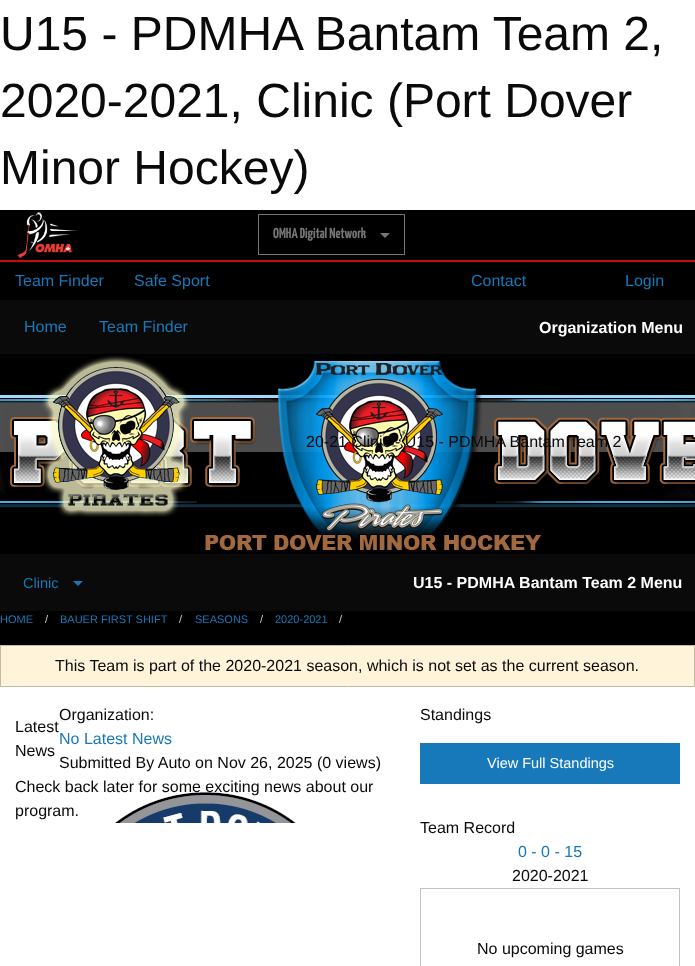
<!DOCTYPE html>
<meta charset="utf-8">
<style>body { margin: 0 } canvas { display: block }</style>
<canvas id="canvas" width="695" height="966"></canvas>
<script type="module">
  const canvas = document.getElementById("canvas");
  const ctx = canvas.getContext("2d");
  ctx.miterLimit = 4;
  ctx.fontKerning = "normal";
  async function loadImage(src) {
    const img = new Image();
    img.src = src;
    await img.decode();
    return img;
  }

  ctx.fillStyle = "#ffffff";
  ctx.fillRect(0, 0, 695, 966);
  ctx.font = "48px Liberation Sans";
  ctx.fillStyle = "#0a0a0a";
  ctx.fillText("U15 - PDMHA Bantam Team 2,", 0, 50);
  ctx.fillText("2020-2021, Clinic (Port Dover", 0, 117);
  ctx.fillText("Minor Hockey)", 0, 184);
  ctx.fillStyle = "#000000";
  ctx.fillRect(0, 210, 695, 50);
  ctx.fillStyle = "#c60c0c";
  ctx.fillRect(0, 260, 695, 2);
  ctx.drawImage(await loadImage("img1.png"), 17, 212, 62, 46);
  ctx.strokeStyle = "#767676";
  ctx.strokeRect(258.5, 214.5, 146, 40);
  ctx.font = "200 14.5px Yanone Kaffeesatz";
  ctx.fillStyle = "#767676";
  ctx.fillText("OMHA Digital Network", 273, 238);
  ctx.beginPath();
  ctx.moveTo(380, 233);
  ctx.lineTo(390, 233);
  ctx.lineTo(385, 238);
  ctx.closePath();
  ctx.fill();
  ctx.fillStyle = "#000000";
  ctx.fillRect(0, 262, 695, 383);
  ctx.font = "16px Liberation Sans";
  ctx.fillStyle = "#1779ba";
  ctx.fillText("Team Finder", 15, 286);
  ctx.fillText("Safe Sport", 134, 286);
  ctx.fillText("Contact", 471, 286);
  ctx.fillText("Login", 625, 286);
  ctx.fillStyle = "#0a0a0a";
  ctx.fillRect(0, 300, 695, 54);
  ctx.fillStyle = "#1779ba";
  ctx.fillText("Home", 24, 332);
  ctx.fillText("Team Finder", 99, 332);
  ctx.font = "bold 16px Liberation Sans";
  ctx.fillStyle = "#fefefe";
  ctx.fillText("Organization Menu", 539, 333);
  ctx.drawImage(await loadImage("img2.png"), 0, 361, 695, 189);
  ctx.drawImage(await loadImage("img3.png"), 42, 355, 149, 162);
  ctx.font = "16px Liberation Sans";
  ctx.fillStyle = "#0a0a0a";
  ctx.fillText("20-21 Clinic - U15 - PDMHA Bantam Team 2", 306, 447);
  ctx.fillRect(0, 554, 695, 57);
  ctx.font = "14.5px Liberation Sans";
  ctx.fillStyle = "#1779ba";
  ctx.fillText("Clinic", 23, 588);
  ctx.beginPath();
  ctx.moveTo(73, 581);
  ctx.lineTo(83, 581);
  ctx.lineTo(78, 586);
  ctx.closePath();
  ctx.fill();
  ctx.font = "bold 16px Liberation Sans";
  ctx.fillStyle = "#fefefe";
  ctx.fillText("U15 - PDMHA Bantam Team 2 Menu", 413, 588);
  ctx.font = "11px Liberation Sans";
  ctx.fillStyle = "#1779ba";
  ctx.fillText("HOME", 0, 623);
  ctx.fillStyle = "#cacaca";
  ctx.fillText("/", 45, 623);
  ctx.fillStyle = "#1779ba";
  ctx.fillText("BAUER FIRST SHIFT", 60, 623);
  ctx.fillStyle = "#cacaca";
  ctx.fillText("/", 179, 623);
  ctx.fillStyle = "#1779ba";
  ctx.fillText("SEASONS", 195, 623);
  ctx.fillStyle = "#cacaca";
  ctx.fillText("/", 260, 623);
  ctx.fillStyle = "#1779ba";
  ctx.fillText("2020-2021", 275, 623);
  ctx.fillStyle = "#cacaca";
  ctx.fillText("/", 339, 623);
  ctx.fillStyle = "#fff3d9";
  ctx.beginPath();
  ctx.rect(0.5, 645.5, 694, 41);
  ctx.fill();
  ctx.strokeStyle = "#c2b9a5";
  ctx.stroke();
  ctx.font = "16px Liberation Sans";
  ctx.fillStyle = "#0a0a0a";
  ctx.fillText("This Team is part of the 2020-2021 season, which is not set as the current season.", 55, 671);
  ctx.fillText("Latest", 15, 732);
  ctx.fillText("News", 15, 756);
  ctx.fillText("Organization:", 59, 720);
  ctx.fillStyle = "#1779ba";
  ctx.fillText("No Latest News", 59, 744);
  ctx.fillStyle = "#0a0a0a";
  ctx.fillText("Submitted By Auto on Nov 26, 2025 (0 views)", 59, 768);
  ctx.drawImage(await loadImage("img4.png"), 115, 792, 181, 31);
  ctx.fillText("Check back later for some exciting news about our", 15, 792);
  ctx.fillText("program.", 15, 816);
  ctx.fillText("Standings", 420, 720);
  ctx.fillStyle = "#1779ba";
  ctx.fillRect(420, 743, 260, 41);
  ctx.font = "14.5px Liberation Sans";
  ctx.fillStyle = "#fefefe";
  ctx.fillText("View Full Standings", 487, 768);
  ctx.font = "16px Liberation Sans";
  ctx.fillStyle = "#0a0a0a";
  ctx.fillText("Team Record", 420, 833);
  ctx.fillStyle = "#1779ba";
  ctx.fillText("0 - 0 - 15", 518, 857);
  ctx.fillStyle = "#0a0a0a";
  ctx.fillText("2020-2021", 512, 881);
  ctx.strokeStyle = "#c2c2c2";
  ctx.strokeRect(420.5, 888.5, 259, 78);
  ctx.fillText("No upcoming games", 477, 954);
</script>
